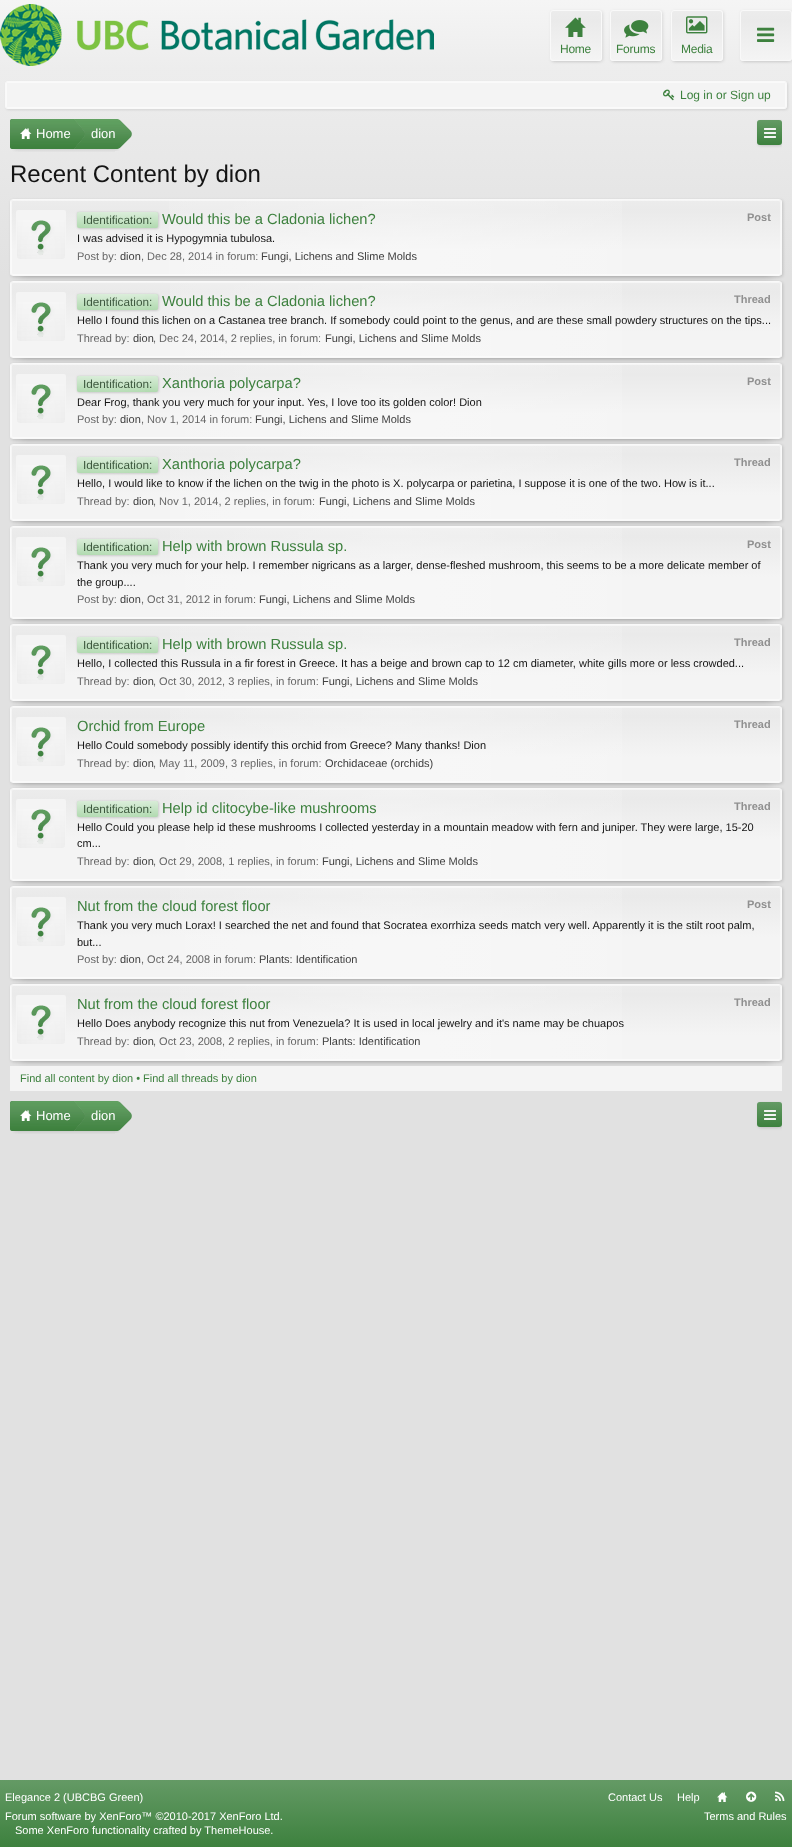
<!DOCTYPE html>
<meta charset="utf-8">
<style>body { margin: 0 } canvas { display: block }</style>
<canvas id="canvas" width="792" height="1847"></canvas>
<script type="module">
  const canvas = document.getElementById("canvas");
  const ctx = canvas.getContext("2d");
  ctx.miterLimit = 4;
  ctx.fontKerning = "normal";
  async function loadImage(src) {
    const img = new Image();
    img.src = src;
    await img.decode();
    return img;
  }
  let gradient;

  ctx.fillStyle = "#ffffff";
  ctx.fillRect(0, 0, 792, 1847);
  gradient = ctx.createLinearGradient(396, 0, 396, 1847);
  gradient.addColorStop(0, "#f5f5f5");
  gradient.addColorStop(0.11, "#dddddd");
  ctx.fillStyle = gradient;
  ctx.fillRect(0, 0, 792, 71);
  ctx.drawImage(await loadImage("img1.png"), 0, 4, 434, 62);
  ctx.fillStyle = "rgba(0, 0, 0, 0.1)";
  ctx.filter = "blur(1.5px)";
  ctx.beginPath();
  ctx.rect(553, 16, 46, 45);
  ctx.fill();
  ctx.filter = "none";
  ctx.filter = "blur(1.5px)";
  ctx.beginPath();
  ctx.roundRect(551, 11, 52, 51, 3);
  ctx.fill();
  ctx.filter = "none";
  gradient = ctx.createLinearGradient(576, 10, 576, 61);
  gradient.addColorStop(0, "#ececec");
  gradient.addColorStop(0.2, "#eaeaea");
  gradient.addColorStop(0.98, "#f4f4f4");
  ctx.fillStyle = gradient;
  ctx.beginPath();
  ctx.roundRect(550, 10, 52, 51, 3);
  ctx.fill();
  ctx.beginPath();
  ctx.roundRect(550.5, 10.5, 51, 50, 2.5);
  ctx.strokeStyle = "rgba(255, 255, 255, 0.3)";
  ctx.stroke();
  ctx.beginPath();
  ctx.roundRect(550.5, 10.5, 51, 50, 2.5);
  ctx.strokeStyle = "#f9f9f9";
  ctx.stroke();
  ctx.drawImage(await loadImage("img2.png"), 565, 17, 21, 20);
  ctx.letterSpacing = "-0.25px";
  ctx.font = "12px Liberation Sans";
  ctx.fillStyle = "#3d813e";
  ctx.fillText("Home", 560, 53);
  ctx.fillStyle = "rgba(0, 0, 0, 0.1)";
  ctx.filter = "blur(1.5px)";
  ctx.beginPath();
  ctx.rect(613, 16, 46, 45);
  ctx.fill();
  ctx.filter = "none";
  ctx.filter = "blur(1.5px)";
  ctx.beginPath();
  ctx.roundRect(611, 11, 52, 51, 3);
  ctx.fill();
  ctx.filter = "none";
  gradient = ctx.createLinearGradient(636, 10, 636, 61);
  gradient.addColorStop(0, "#ececec");
  gradient.addColorStop(0.2, "#eaeaea");
  gradient.addColorStop(0.98, "#f4f4f4");
  ctx.fillStyle = gradient;
  ctx.beginPath();
  ctx.roundRect(610, 10, 52, 51, 3);
  ctx.fill();
  ctx.beginPath();
  ctx.roundRect(610.5, 10.5, 51, 50, 2.5);
  ctx.strokeStyle = "rgba(255, 255, 255, 0.3)";
  ctx.stroke();
  ctx.beginPath();
  ctx.roundRect(610.5, 10.5, 51, 50, 2.5);
  ctx.strokeStyle = "#f9f9f9";
  ctx.stroke();
  ctx.drawImage(await loadImage("img3.png"), 624, 20, 25, 18);
  ctx.fillStyle = "#3d813e";
  ctx.fillText("Forums", 616, 53);
  ctx.fillStyle = "rgba(0, 0, 0, 0.1)";
  ctx.filter = "blur(1.5px)";
  ctx.beginPath();
  ctx.rect(674, 16, 46, 45);
  ctx.fill();
  ctx.filter = "none";
  ctx.filter = "blur(1.5px)";
  ctx.beginPath();
  ctx.roundRect(672, 11, 52, 51, 3);
  ctx.fill();
  ctx.filter = "none";
  gradient = ctx.createLinearGradient(697, 10, 697, 61);
  gradient.addColorStop(0, "#ececec");
  gradient.addColorStop(0.2, "#eaeaea");
  gradient.addColorStop(0.98, "#f4f4f4");
  ctx.fillStyle = gradient;
  ctx.beginPath();
  ctx.roundRect(671, 10, 52, 51, 3);
  ctx.fill();
  ctx.beginPath();
  ctx.roundRect(671.5, 10.5, 51, 50, 2.5);
  ctx.strokeStyle = "rgba(255, 255, 255, 0.3)";
  ctx.stroke();
  ctx.beginPath();
  ctx.roundRect(671.5, 10.5, 51, 50, 2.5);
  ctx.strokeStyle = "#f9f9f9";
  ctx.stroke();
  ctx.drawImage(await loadImage("img4.png"), 686, 16, 22, 18);
  ctx.fillStyle = "#3d813e";
  ctx.fillText("Media", 681, 53);
  ctx.fillStyle = "rgba(0, 0, 0, 0.1)";
  ctx.filter = "blur(1.5px)";
  ctx.beginPath();
  ctx.rect(743, 16, 46, 45);
  ctx.fill();
  ctx.filter = "none";
  ctx.filter = "blur(1.5px)";
  ctx.beginPath();
  ctx.roundRect(741, 11, 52, 51, 3);
  ctx.fill();
  ctx.filter = "none";
  gradient = ctx.createLinearGradient(766, 10, 766, 61);
  gradient.addColorStop(0, "#ececec");
  gradient.addColorStop(0.2, "#eaeaea");
  gradient.addColorStop(0.98, "#f4f4f4");
  ctx.fillStyle = gradient;
  ctx.beginPath();
  ctx.roundRect(740, 10, 52, 51, 3);
  ctx.fill();
  ctx.beginPath();
  ctx.roundRect(740.5, 10.5, 51, 50, 2.5);
  ctx.strokeStyle = "rgba(255, 255, 255, 0.3)";
  ctx.stroke();
  ctx.beginPath();
  ctx.roundRect(740.5, 10.5, 51, 50, 2.5);
  ctx.strokeStyle = "#f9f9f9";
  ctx.stroke();
  ctx.drawImage(await loadImage("img5.png"), 757, 27, 18, 15);
  gradient = ctx.createLinearGradient(396, 71, 396, 1780);
  gradient.addColorStop(0, "#ededed");
  gradient.addColorStop(0.12, "#e1e1e1");
  ctx.fillStyle = gradient;
  ctx.fillRect(0, 71, 792, 1709);
  ctx.fillStyle = "rgba(0, 0, 0, 0.1)";
  ctx.filter = "blur(1px)";
  ctx.beginPath();
  ctx.roundRect(6, 82, 782, 28, 3);
  ctx.fill();
  ctx.filter = "none";
  ctx.fillStyle = "#f4f4f4";
  ctx.beginPath();
  ctx.roundRect(5, 81, 782, 28, 3);
  ctx.fill();
  ctx.beginPath();
  ctx.roundRect(6.5, 82.5, 779, 25, 1.5);
  ctx.strokeStyle = "#fafafa";
  ctx.stroke();
  ctx.beginPath();
  ctx.roundRect(5.5, 81.5, 781, 27, 2.5);
  ctx.strokeStyle = "#f9f9f9";
  ctx.stroke();
  ctx.drawImage(await loadImage("img6.png"), 663, 89, 12, 12);
  ctx.letterSpacing = "0px";
  ctx.fillStyle = "#3d813e";
  ctx.fillText("Log in or Sign up", 680, 99);
  ctx.drawImage(await loadImage("img7.png"), 30, 119, 41, 33);
  ctx.drawImage(await loadImage("img8.png"), 10, 119, 20, 33);
  ctx.drawImage(await loadImage("img9.png"), 20, 128, 12, 11);
  ctx.font = "13px Liberation Sans";
  ctx.fillStyle = "#ffffff";
  ctx.fillText("Home", 36, 138);
  ctx.drawImage(await loadImage("img10.png"), 71, 119, 14, 30);
  ctx.drawImage(await loadImage("img11.png"), 91, 119, 24, 33);
  ctx.drawImage(await loadImage("img12.png"), 71, 119, 20, 33);
  ctx.fillText("dion", 91, 138);
  ctx.drawImage(await loadImage("img13.png"), 115, 119, 17, 32);
  ctx.fillStyle = "rgba(0, 0, 0, 0.1)";
  ctx.filter = "blur(1.5px)";
  ctx.beginPath();
  ctx.rect(760, 126, 19, 19);
  ctx.fill();
  ctx.filter = "none";
  ctx.save();
  ctx.beginPath();
  ctx.rect(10, 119, 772, 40);
  ctx.clip();
  ctx.filter = "blur(1.5px)";
  ctx.beginPath();
  ctx.roundRect(758, 121, 25, 25, 3);
  ctx.fill();
  ctx.filter = "none";
  ctx.restore();
  ctx.fillStyle = "#3d813e";
  ctx.beginPath();
  ctx.roundRect(757, 120, 25, 25, 3);
  ctx.fill();
  gradient = ctx.createLinearGradient(770, 120, 770, 145);
  gradient.addColorStop(0, "rgba(255, 255, 255, 0.2)");
  gradient.addColorStop(1, "rgba(255, 255, 255, 0)");
  ctx.fillStyle = gradient;
  ctx.beginPath();
  ctx.roundRect(757, 120, 25, 25, 3);
  ctx.fill();
  ctx.drawImage(await loadImage("img14.png"), 764, 128, 12, 10);
  ctx.font = "24px Liberation Sans";
  ctx.fillStyle = "#141414";
  ctx.fillText("Recent Content by dion", 10, 182);
  ctx.fillStyle = "rgba(0, 0, 0, 0.2)";
  ctx.filter = "blur(5px)";
  ctx.beginPath();
  ctx.rect(20, 219, 752, 57);
  ctx.fill();
  ctx.filter = "none";
  ctx.fillStyle = "rgba(0, 0, 0, 0.15)";
  ctx.filter = "blur(1.5px)";
  ctx.beginPath();
  ctx.roundRect(11, 200, 772, 77, 3);
  ctx.fill();
  ctx.filter = "none";
  ctx.save();
  ctx.beginPath();
  ctx.roundRect(10, 199, 772, 77, 3);
  ctx.clip();
  gradient = ctx.createLinearGradient(396, 200, 396, 275);
  gradient.addColorStop(0, "#ececec");
  gradient.addColorStop(0.13, "#eaeaea");
  gradient.addColorStop(0.67, "#f4f4f4");
  ctx.fillStyle = gradient;
  ctx.fillRect(10, 200, 772, 75);
  ctx.restore();
  gradient = ctx.createLinearGradient(11, 238, 781, 237);
  gradient.addColorStop(0, "rgba(255, 255, 255, 0)");
  gradient.addColorStop(0.5, "rgba(255, 255, 255, 0.3)");
  gradient.addColorStop(1, "rgba(255, 255, 255, 0)");
  ctx.fillStyle = gradient;
  ctx.fillRect(169, 200, 453, 75);
  ctx.beginPath();
  ctx.roundRect(11.5, 200.5, 769, 74, 1.5);
  ctx.strokeStyle = "rgba(255, 255, 255, 0.5)";
  ctx.stroke();
  ctx.beginPath();
  ctx.roundRect(10.5, 199.5, 771, 76, 2.5);
  ctx.strokeStyle = "#f9f9f9";
  ctx.stroke();
  ctx.fillStyle = "#f4f4f4";
  ctx.beginPath();
  ctx.roundRect(16, 210, 50, 50, 2);
  ctx.fill();
  ctx.drawImage(await loadImage("img15.png"), 17, 220, 48, 39);
  ctx.fillStyle = "rgba(0, 0, 0, 0.1)";
  ctx.filter = "blur(1px)";
  ctx.beginPath();
  ctx.roundRect(77, 212, 81, 16, 2);
  ctx.fill();
  ctx.filter = "none";
  ctx.filter = "blur(1px)";
  ctx.beginPath();
  ctx.roundRect(78, 213, 81, 16, 2);
  ctx.fill();
  ctx.filter = "none";
  ctx.fillStyle = "#b1dab0";
  ctx.beginPath();
  ctx.roundRect(77, 212, 81, 16, 2);
  ctx.fill();
  gradient = ctx.createLinearGradient(77, 220, 158, 220);
  gradient.addColorStop(0, "rgba(255, 255, 255, 0)");
  gradient.addColorStop(0.5, "rgba(255, 255, 255, 0.1)");
  gradient.addColorStop(1, "rgba(255, 255, 255, 0)");
  ctx.fillStyle = gradient;
  ctx.fillRect(90, 212, 55, 16);
  gradient = ctx.createLinearGradient(118, 212, 118, 228);
  gradient.addColorStop(0, "rgba(255, 255, 255, 0.5)");
  gradient.addColorStop(1, "rgba(255, 255, 255, 0)");
  ctx.fillStyle = gradient;
  ctx.beginPath();
  ctx.roundRect(77, 212, 81, 16, 2);
  ctx.fill();
  ctx.font = "11.75px Liberation Sans";
  ctx.fillStyle = "#3d583e";
  ctx.fillText("Identification:", 83, 224);
  ctx.font = "14.7px Liberation Sans";
  ctx.fillStyle = "#3d813e";
  ctx.fillText("Would this be a Cladonia lichen?", 162, 224);
  ctx.font = "bold 11px Liberation Sans";
  ctx.fillStyle = "#909090";
  ctx.fillText("Post", 747, 221);
  ctx.font = "11px Liberation Sans";
  ctx.fillStyle = "#141414";
  ctx.fillText("I was advised it is Hypogymnia tubulosa.", 77, 242);
  ctx.fillStyle = "#666666";
  ctx.fillText("Post by:", 77, 260);
  ctx.fillStyle = "#404040";
  ctx.fillText("dion", 120, 260);
  ctx.fillStyle = "#666666";
  ctx.fillText(", Dec 28, 2014 in forum:", 141, 260);
  ctx.fillStyle = "#404040";
  ctx.fillText("Fungi, Lichens and Slime Molds", 261, 260);
  ctx.fillStyle = "rgba(0, 0, 0, 0.2)";
  ctx.filter = "blur(5px)";
  ctx.beginPath();
  ctx.rect(20, 301, 752, 57);
  ctx.fill();
  ctx.filter = "none";
  ctx.fillStyle = "rgba(0, 0, 0, 0.15)";
  ctx.filter = "blur(1.5px)";
  ctx.beginPath();
  ctx.roundRect(11, 282, 772, 77, 3);
  ctx.fill();
  ctx.filter = "none";
  ctx.save();
  ctx.beginPath();
  ctx.roundRect(10, 281, 772, 77, 3);
  ctx.clip();
  gradient = ctx.createLinearGradient(396, 282, 396, 357);
  gradient.addColorStop(0, "#ececec");
  gradient.addColorStop(0.13, "#eaeaea");
  gradient.addColorStop(0.67, "#f4f4f4");
  ctx.fillStyle = gradient;
  ctx.fillRect(10, 282, 772, 75);
  ctx.restore();
  gradient = ctx.createLinearGradient(11, 320, 781, 320);
  gradient.addColorStop(0, "rgba(255, 255, 255, 0)");
  gradient.addColorStop(0.5, "rgba(255, 255, 255, 0.3)");
  gradient.addColorStop(1, "rgba(255, 255, 255, 0)");
  ctx.fillStyle = gradient;
  ctx.fillRect(170, 282, 452, 75);
  ctx.beginPath();
  ctx.roundRect(11.5, 282.5, 769, 74, 1.5);
  ctx.strokeStyle = "rgba(255, 255, 255, 0.5)";
  ctx.stroke();
  ctx.beginPath();
  ctx.roundRect(10.5, 281.5, 771, 76, 2.5);
  ctx.strokeStyle = "#f9f9f9";
  ctx.stroke();
  ctx.fillStyle = "#f4f4f4";
  ctx.beginPath();
  ctx.roundRect(16, 292, 50, 50, 2);
  ctx.fill();
  ctx.drawImage(await loadImage("img15.png"), 17, 302, 48, 39);
  ctx.fillStyle = "rgba(0, 0, 0, 0.1)";
  ctx.filter = "blur(1px)";
  ctx.beginPath();
  ctx.roundRect(77, 294, 81, 16, 2);
  ctx.fill();
  ctx.filter = "none";
  ctx.filter = "blur(1px)";
  ctx.beginPath();
  ctx.roundRect(78, 295, 81, 16, 2);
  ctx.fill();
  ctx.filter = "none";
  ctx.fillStyle = "#b1dab0";
  ctx.beginPath();
  ctx.roundRect(77, 294, 81, 16, 2);
  ctx.fill();
  gradient = ctx.createLinearGradient(77, 302, 158, 302);
  gradient.addColorStop(0, "rgba(255, 255, 255, 0)");
  gradient.addColorStop(0.5, "rgba(255, 255, 255, 0.1)");
  gradient.addColorStop(1, "rgba(255, 255, 255, 0)");
  ctx.fillStyle = gradient;
  ctx.fillRect(90, 294, 55, 16);
  gradient = ctx.createLinearGradient(118, 294, 118, 310);
  gradient.addColorStop(0, "rgba(255, 255, 255, 0.5)");
  gradient.addColorStop(1, "rgba(255, 255, 255, 0)");
  ctx.fillStyle = gradient;
  ctx.beginPath();
  ctx.roundRect(77, 294, 81, 16, 2);
  ctx.fill();
  ctx.font = "11.75px Liberation Sans";
  ctx.fillStyle = "#3d583e";
  ctx.fillText("Identification:", 83, 306);
  ctx.font = "14.7px Liberation Sans";
  ctx.fillStyle = "#3d813e";
  ctx.fillText("Would this be a Cladonia lichen?", 162, 306);
  ctx.font = "bold 11px Liberation Sans";
  ctx.fillStyle = "#909090";
  ctx.fillText("Thread", 734, 303);
  ctx.font = "11px Liberation Sans";
  ctx.fillStyle = "#141414";
  ctx.fillText("Hello I found this lichen on a Castanea tree branch. If somebody could point to the genus, and are these small powdery structures on the tips...", 77, 324);
  ctx.fillStyle = "#666666";
  ctx.fillText("Thread by:", 77, 342);
  ctx.fillStyle = "#404040";
  ctx.fillText("dion", 133, 342);
  ctx.fillStyle = "#666666";
  ctx.fillText(", Dec 24, 2014, 2 replies, in forum:", 153, 342);
  ctx.fillStyle = "#404040";
  ctx.fillText("Fungi, Lichens and Slime Molds", 325, 342);
  ctx.fillStyle = "rgba(0, 0, 0, 0.2)";
  ctx.filter = "blur(5px)";
  ctx.beginPath();
  ctx.rect(20, 383, 752, 56);
  ctx.fill();
  ctx.filter = "none";
  ctx.fillStyle = "rgba(0, 0, 0, 0.15)";
  ctx.filter = "blur(1.5px)";
  ctx.beginPath();
  ctx.roundRect(11, 364, 772, 76, 3);
  ctx.fill();
  ctx.filter = "none";
  ctx.save();
  ctx.beginPath();
  ctx.roundRect(10, 363, 772, 76, 3);
  ctx.clip();
  gradient = ctx.createLinearGradient(396, 364, 396, 438);
  gradient.addColorStop(0, "#ececec");
  gradient.addColorStop(0.14, "#eaeaea");
  gradient.addColorStop(0.68, "#f4f4f4");
  ctx.fillStyle = gradient;
  ctx.fillRect(10, 364, 772, 74);
  ctx.restore();
  gradient = ctx.createLinearGradient(11, 401, 781, 401);
  gradient.addColorStop(0, "rgba(255, 255, 255, 0)");
  gradient.addColorStop(0.5, "rgba(255, 255, 255, 0.3)");
  gradient.addColorStop(1, "rgba(255, 255, 255, 0)");
  ctx.fillStyle = gradient;
  ctx.fillRect(170, 364, 452, 74);
  ctx.beginPath();
  ctx.roundRect(11.5, 364.5, 769, 73, 1.5);
  ctx.strokeStyle = "rgba(255, 255, 255, 0.5)";
  ctx.stroke();
  ctx.beginPath();
  ctx.roundRect(10.5, 363.5, 771, 75, 2.5);
  ctx.strokeStyle = "#f9f9f9";
  ctx.stroke();
  ctx.fillStyle = "#f4f4f4";
  ctx.beginPath();
  ctx.roundRect(16, 374, 50, 50, 2);
  ctx.fill();
  ctx.drawImage(await loadImage("img15.png"), 17, 384, 48, 39);
  ctx.fillStyle = "rgba(0, 0, 0, 0.1)";
  ctx.filter = "blur(1px)";
  ctx.beginPath();
  ctx.roundRect(77, 376, 81, 16, 2);
  ctx.fill();
  ctx.filter = "none";
  ctx.filter = "blur(1px)";
  ctx.beginPath();
  ctx.roundRect(78, 377, 81, 16, 2);
  ctx.fill();
  ctx.filter = "none";
  ctx.fillStyle = "#b1dab0";
  ctx.beginPath();
  ctx.roundRect(77, 376, 81, 16, 2);
  ctx.fill();
  gradient = ctx.createLinearGradient(77, 384, 158, 384);
  gradient.addColorStop(0, "rgba(255, 255, 255, 0)");
  gradient.addColorStop(0.5, "rgba(255, 255, 255, 0.1)");
  gradient.addColorStop(1, "rgba(255, 255, 255, 0)");
  ctx.fillStyle = gradient;
  ctx.fillRect(90, 376, 55, 16);
  gradient = ctx.createLinearGradient(118, 376, 118, 392);
  gradient.addColorStop(0, "rgba(255, 255, 255, 0.5)");
  gradient.addColorStop(1, "rgba(255, 255, 255, 0)");
  ctx.fillStyle = gradient;
  ctx.beginPath();
  ctx.roundRect(77, 376, 81, 16, 2);
  ctx.fill();
  ctx.font = "11.75px Liberation Sans";
  ctx.fillStyle = "#3d583e";
  ctx.fillText("Identification:", 83, 388);
  ctx.font = "14.7px Liberation Sans";
  ctx.fillStyle = "#3d813e";
  ctx.fillText("Xanthoria polycarpa?", 162, 388);
  ctx.font = "bold 11px Liberation Sans";
  ctx.fillStyle = "#909090";
  ctx.fillText("Post", 747, 385);
  ctx.font = "11px Liberation Sans";
  ctx.fillStyle = "#141414";
  ctx.fillText("Dear Frog, thank you very much for your input. Yes, I love too its golden color! Dion", 77, 406);
  ctx.fillStyle = "#666666";
  ctx.fillText("Post by:", 77, 423);
  ctx.fillStyle = "#404040";
  ctx.fillText("dion", 120, 423);
  ctx.fillStyle = "#666666";
  ctx.fillText(", Nov 1, 2014 in forum:", 141, 423);
  ctx.fillStyle = "#404040";
  ctx.fillText("Fungi, Lichens and Slime Molds", 255, 423);
  ctx.fillStyle = "rgba(0, 0, 0, 0.2)";
  ctx.filter = "blur(5px)";
  ctx.beginPath();
  ctx.rect(20, 464, 752, 57);
  ctx.fill();
  ctx.filter = "none";
  ctx.fillStyle = "rgba(0, 0, 0, 0.15)";
  ctx.filter = "blur(1.5px)";
  ctx.beginPath();
  ctx.roundRect(11, 445, 772, 77, 3);
  ctx.fill();
  ctx.filter = "none";
  ctx.save();
  ctx.beginPath();
  ctx.roundRect(10, 444, 772, 77, 3);
  ctx.clip();
  gradient = ctx.createLinearGradient(396, 445, 396, 520);
  gradient.addColorStop(0, "#ececec");
  gradient.addColorStop(0.13, "#eaeaea");
  gradient.addColorStop(0.67, "#f4f4f4");
  ctx.fillStyle = gradient;
  ctx.fillRect(10, 445, 772, 75);
  ctx.restore();
  gradient = ctx.createLinearGradient(11, 483, 781, 483);
  gradient.addColorStop(0, "rgba(255, 255, 255, 0)");
  gradient.addColorStop(0.5, "rgba(255, 255, 255, 0.3)");
  gradient.addColorStop(1, "rgba(255, 255, 255, 0)");
  ctx.fillStyle = gradient;
  ctx.fillRect(170, 445, 452, 75);
  ctx.beginPath();
  ctx.roundRect(11.5, 445.5, 769, 74, 1.5);
  ctx.strokeStyle = "rgba(255, 255, 255, 0.5)";
  ctx.stroke();
  ctx.beginPath();
  ctx.roundRect(10.5, 444.5, 771, 76, 2.5);
  ctx.strokeStyle = "#f9f9f9";
  ctx.stroke();
  ctx.fillStyle = "#f4f4f4";
  ctx.beginPath();
  ctx.roundRect(16, 455, 50, 50, 2);
  ctx.fill();
  ctx.drawImage(await loadImage("img15.png"), 17, 465, 48, 39);
  ctx.fillStyle = "rgba(0, 0, 0, 0.1)";
  ctx.filter = "blur(1px)";
  ctx.beginPath();
  ctx.roundRect(77, 457, 81, 16, 2);
  ctx.fill();
  ctx.filter = "none";
  ctx.filter = "blur(1px)";
  ctx.beginPath();
  ctx.roundRect(78, 458, 81, 16, 2);
  ctx.fill();
  ctx.filter = "none";
  ctx.fillStyle = "#b1dab0";
  ctx.beginPath();
  ctx.roundRect(77, 457, 81, 16, 2);
  ctx.fill();
  gradient = ctx.createLinearGradient(77, 465, 158, 465);
  gradient.addColorStop(0, "rgba(255, 255, 255, 0)");
  gradient.addColorStop(0.5, "rgba(255, 255, 255, 0.1)");
  gradient.addColorStop(1, "rgba(255, 255, 255, 0)");
  ctx.fillStyle = gradient;
  ctx.fillRect(90, 457, 55, 16);
  gradient = ctx.createLinearGradient(118, 457, 118, 473);
  gradient.addColorStop(0, "rgba(255, 255, 255, 0.5)");
  gradient.addColorStop(1, "rgba(255, 255, 255, 0)");
  ctx.fillStyle = gradient;
  ctx.beginPath();
  ctx.roundRect(77, 457, 81, 16, 2);
  ctx.fill();
  ctx.font = "11.75px Liberation Sans";
  ctx.fillStyle = "#3d583e";
  ctx.fillText("Identification:", 83, 469);
  ctx.font = "14.7px Liberation Sans";
  ctx.fillStyle = "#3d813e";
  ctx.fillText("Xanthoria polycarpa?", 162, 469);
  ctx.font = "bold 11px Liberation Sans";
  ctx.fillStyle = "#909090";
  ctx.fillText("Thread", 734, 466);
  ctx.font = "11px Liberation Sans";
  ctx.fillStyle = "#141414";
  ctx.fillText("Hello, I would like to know if the lichen on the twig in the photo is X. polycarpa or parietina, I suppose it is one of the two. How is it...", 77, 487);
  ctx.fillStyle = "#666666";
  ctx.fillText("Thread by:", 77, 505);
  ctx.fillStyle = "#404040";
  ctx.fillText("dion", 133, 505);
  ctx.fillStyle = "#666666";
  ctx.fillText(", Nov 1, 2014, 2 replies, in forum:", 153, 505);
  ctx.fillStyle = "#404040";
  ctx.fillText("Fungi, Lichens and Slime Molds", 319, 505);
  ctx.fillStyle = "rgba(0, 0, 0, 0.2)";
  ctx.filter = "blur(5px)";
  ctx.beginPath();
  ctx.rect(20, 546, 752, 73);
  ctx.fill();
  ctx.filter = "none";
  ctx.fillStyle = "rgba(0, 0, 0, 0.15)";
  ctx.filter = "blur(1.5px)";
  ctx.beginPath();
  ctx.roundRect(11, 527, 772, 93, 3);
  ctx.fill();
  ctx.filter = "none";
  ctx.save();
  ctx.beginPath();
  ctx.roundRect(10, 526, 772, 93, 3);
  ctx.clip();
  gradient = ctx.createLinearGradient(396, 527, 396, 618);
  gradient.addColorStop(0, "#ececec");
  gradient.addColorStop(0.11, "#eaeaea");
  gradient.addColorStop(0.55, "#f4f4f4");
  ctx.fillStyle = gradient;
  ctx.fillRect(10, 527, 772, 91);
  ctx.restore();
  gradient = ctx.createLinearGradient(11, 573, 781, 573);
  gradient.addColorStop(0, "rgba(255, 255, 255, 0)");
  gradient.addColorStop(0.5, "rgba(255, 255, 255, 0.3)");
  gradient.addColorStop(1, "rgba(255, 255, 255, 0)");
  ctx.fillStyle = gradient;
  ctx.fillRect(170, 527, 452, 91);
  ctx.beginPath();
  ctx.roundRect(11.5, 527.5, 769, 90, 1.5);
  ctx.strokeStyle = "rgba(255, 255, 255, 0.5)";
  ctx.stroke();
  ctx.beginPath();
  ctx.roundRect(10.5, 526.5, 771, 92, 2.5);
  ctx.strokeStyle = "#f9f9f9";
  ctx.stroke();
  ctx.fillStyle = "#f4f4f4";
  ctx.beginPath();
  ctx.roundRect(16, 537, 50, 50, 2);
  ctx.fill();
  ctx.drawImage(await loadImage("img15.png"), 17, 547, 48, 39);
  ctx.fillStyle = "rgba(0, 0, 0, 0.1)";
  ctx.filter = "blur(1px)";
  ctx.beginPath();
  ctx.roundRect(77, 539, 81, 16, 2);
  ctx.fill();
  ctx.filter = "none";
  ctx.filter = "blur(1px)";
  ctx.beginPath();
  ctx.roundRect(78, 540, 81, 16, 2);
  ctx.fill();
  ctx.filter = "none";
  ctx.fillStyle = "#b1dab0";
  ctx.beginPath();
  ctx.roundRect(77, 539, 81, 16, 2);
  ctx.fill();
  gradient = ctx.createLinearGradient(77, 547, 158, 547);
  gradient.addColorStop(0, "rgba(255, 255, 255, 0)");
  gradient.addColorStop(0.5, "rgba(255, 255, 255, 0.1)");
  gradient.addColorStop(1, "rgba(255, 255, 255, 0)");
  ctx.fillStyle = gradient;
  ctx.fillRect(90, 539, 55, 16);
  gradient = ctx.createLinearGradient(118, 539, 118, 555);
  gradient.addColorStop(0, "rgba(255, 255, 255, 0.5)");
  gradient.addColorStop(1, "rgba(255, 255, 255, 0)");
  ctx.fillStyle = gradient;
  ctx.beginPath();
  ctx.roundRect(77, 539, 81, 16, 2);
  ctx.fill();
  ctx.font = "11.75px Liberation Sans";
  ctx.fillStyle = "#3d583e";
  ctx.fillText("Identification:", 83, 551);
  ctx.font = "14.7px Liberation Sans";
  ctx.fillStyle = "#3d813e";
  ctx.fillText("Help with brown Russula sp.", 162, 551);
  ctx.font = "bold 11px Liberation Sans";
  ctx.fillStyle = "#909090";
  ctx.fillText("Post", 747, 548);
  ctx.font = "11px Liberation Sans";
  ctx.fillStyle = "#141414";
  ctx.fillText("Thank you very much for your help. I remember nigricans as a larger, dense-fleshed mushroom, this seems to be a more delicate member of", 77, 569);
  ctx.fillText("the group....", 77, 586);
  ctx.fillStyle = "#666666";
  ctx.fillText("Post by:", 77, 603);
  ctx.fillStyle = "#404040";
  ctx.fillText("dion", 120, 603);
  ctx.fillStyle = "#666666";
  ctx.fillText(", Oct 31, 2012 in forum:", 141, 603);
  ctx.fillStyle = "#404040";
  ctx.fillText("Fungi, Lichens and Slime Molds", 259, 603);
  ctx.fillStyle = "rgba(0, 0, 0, 0.2)";
  ctx.filter = "blur(5px)";
  ctx.beginPath();
  ctx.rect(20, 644, 752, 57);
  ctx.fill();
  ctx.filter = "none";
  ctx.fillStyle = "rgba(0, 0, 0, 0.15)";
  ctx.filter = "blur(1.5px)";
  ctx.beginPath();
  ctx.roundRect(11, 625, 772, 77, 3);
  ctx.fill();
  ctx.filter = "none";
  ctx.save();
  ctx.beginPath();
  ctx.roundRect(10, 624, 772, 77, 3);
  ctx.clip();
  gradient = ctx.createLinearGradient(396, 625, 396, 700);
  gradient.addColorStop(0, "#ececec");
  gradient.addColorStop(0.13, "#eaeaea");
  gradient.addColorStop(0.67, "#f4f4f4");
  ctx.fillStyle = gradient;
  ctx.fillRect(10, 625, 772, 75);
  ctx.restore();
  gradient = ctx.createLinearGradient(11, 663, 781, 663);
  gradient.addColorStop(0, "rgba(255, 255, 255, 0)");
  gradient.addColorStop(0.5, "rgba(255, 255, 255, 0.3)");
  gradient.addColorStop(1, "rgba(255, 255, 255, 0)");
  ctx.fillStyle = gradient;
  ctx.fillRect(170, 625, 452, 75);
  ctx.beginPath();
  ctx.roundRect(11.5, 625.5, 769, 74, 1.5);
  ctx.strokeStyle = "rgba(255, 255, 255, 0.5)";
  ctx.stroke();
  ctx.beginPath();
  ctx.roundRect(10.5, 624.5, 771, 76, 2.5);
  ctx.strokeStyle = "#f9f9f9";
  ctx.stroke();
  ctx.fillStyle = "#f4f4f4";
  ctx.beginPath();
  ctx.roundRect(16, 635, 50, 50, 2);
  ctx.fill();
  ctx.drawImage(await loadImage("img15.png"), 17, 645, 48, 39);
  ctx.fillStyle = "rgba(0, 0, 0, 0.1)";
  ctx.filter = "blur(1px)";
  ctx.beginPath();
  ctx.roundRect(77, 637, 81, 16, 2);
  ctx.fill();
  ctx.filter = "none";
  ctx.filter = "blur(1px)";
  ctx.beginPath();
  ctx.roundRect(78, 638, 81, 16, 2);
  ctx.fill();
  ctx.filter = "none";
  ctx.fillStyle = "#b1dab0";
  ctx.beginPath();
  ctx.roundRect(77, 637, 81, 16, 2);
  ctx.fill();
  gradient = ctx.createLinearGradient(77, 645, 158, 645);
  gradient.addColorStop(0, "rgba(255, 255, 255, 0)");
  gradient.addColorStop(0.5, "rgba(255, 255, 255, 0.1)");
  gradient.addColorStop(1, "rgba(255, 255, 255, 0)");
  ctx.fillStyle = gradient;
  ctx.fillRect(90, 637, 55, 16);
  gradient = ctx.createLinearGradient(118, 637, 118, 653);
  gradient.addColorStop(0, "rgba(255, 255, 255, 0.5)");
  gradient.addColorStop(1, "rgba(255, 255, 255, 0)");
  ctx.fillStyle = gradient;
  ctx.beginPath();
  ctx.roundRect(77, 637, 81, 16, 2);
  ctx.fill();
  ctx.font = "11.75px Liberation Sans";
  ctx.fillStyle = "#3d583e";
  ctx.fillText("Identification:", 83, 649);
  ctx.font = "14.7px Liberation Sans";
  ctx.fillStyle = "#3d813e";
  ctx.fillText("Help with brown Russula sp.", 162, 649);
  ctx.font = "bold 11px Liberation Sans";
  ctx.fillStyle = "#909090";
  ctx.fillText("Thread", 734, 646);
  ctx.font = "11px Liberation Sans";
  ctx.fillStyle = "#141414";
  ctx.fillText("Hello, I collected this Russula in a fir forest in Greece. It has a beige and brown cap to 12 cm diameter, white gills more or less crowded...", 77, 667);
  ctx.fillStyle = "#666666";
  ctx.fillText("Thread by:", 77, 685);
  ctx.fillStyle = "#404040";
  ctx.fillText("dion", 133, 685);
  ctx.fillStyle = "#666666";
  ctx.fillText(", Oct 30, 2012, 3 replies, in forum:", 153, 685);
  ctx.fillStyle = "#404040";
  ctx.fillText("Fungi, Lichens and Slime Molds", 322, 685);
  ctx.fillStyle = "rgba(0, 0, 0, 0.2)";
  ctx.filter = "blur(5px)";
  ctx.beginPath();
  ctx.rect(20, 726, 752, 57);
  ctx.fill();
  ctx.filter = "none";
  ctx.fillStyle = "rgba(0, 0, 0, 0.15)";
  ctx.filter = "blur(1.5px)";
  ctx.beginPath();
  ctx.roundRect(11, 707, 772, 77, 3);
  ctx.fill();
  ctx.filter = "none";
  ctx.save();
  ctx.beginPath();
  ctx.roundRect(10, 706, 772, 77, 3);
  ctx.clip();
  gradient = ctx.createLinearGradient(396, 707, 396, 782);
  gradient.addColorStop(0, "#ececec");
  gradient.addColorStop(0.13, "#eaeaea");
  gradient.addColorStop(0.67, "#f4f4f4");
  ctx.fillStyle = gradient;
  ctx.fillRect(10, 707, 772, 75);
  ctx.restore();
  gradient = ctx.createLinearGradient(11, 745, 781, 745);
  gradient.addColorStop(0, "rgba(255, 255, 255, 0)");
  gradient.addColorStop(0.5, "rgba(255, 255, 255, 0.3)");
  gradient.addColorStop(1, "rgba(255, 255, 255, 0)");
  ctx.fillStyle = gradient;
  ctx.fillRect(170, 707, 452, 75);
  ctx.beginPath();
  ctx.roundRect(11.5, 707.5, 769, 74, 1.5);
  ctx.strokeStyle = "rgba(255, 255, 255, 0.5)";
  ctx.stroke();
  ctx.beginPath();
  ctx.roundRect(10.5, 706.5, 771, 76, 2.5);
  ctx.strokeStyle = "#f9f9f9";
  ctx.stroke();
  ctx.fillStyle = "#f4f4f4";
  ctx.beginPath();
  ctx.roundRect(16, 717, 50, 50, 2);
  ctx.fill();
  ctx.drawImage(await loadImage("img15.png"), 17, 727, 48, 39);
  ctx.font = "14.7px Liberation Sans";
  ctx.fillStyle = "#3d813e";
  ctx.fillText("Orchid from Europe", 77, 731);
  ctx.font = "bold 11px Liberation Sans";
  ctx.fillStyle = "#909090";
  ctx.fillText("Thread", 734, 728);
  ctx.font = "11px Liberation Sans";
  ctx.fillStyle = "#141414";
  ctx.fillText("Hello Could somebody possibly identify this orchid from Greece? Many thanks! Dion", 77, 749);
  ctx.fillStyle = "#666666";
  ctx.fillText("Thread by:", 77, 767);
  ctx.fillStyle = "#404040";
  ctx.fillText("dion", 133, 767);
  ctx.fillStyle = "#666666";
  ctx.fillText(", May 11, 2009, 3 replies, in forum:", 153, 767);
  ctx.fillStyle = "#404040";
  ctx.fillText("Orchidaceae (orchids)", 325, 767);
  ctx.fillStyle = "rgba(0, 0, 0, 0.2)";
  ctx.filter = "blur(5px)";
  ctx.beginPath();
  ctx.rect(20, 808, 752, 73);
  ctx.fill();
  ctx.filter = "none";
  ctx.fillStyle = "rgba(0, 0, 0, 0.15)";
  ctx.filter = "blur(1.5px)";
  ctx.beginPath();
  ctx.roundRect(11, 789, 772, 93, 3);
  ctx.fill();
  ctx.filter = "none";
  ctx.save();
  ctx.beginPath();
  ctx.roundRect(10, 788, 772, 93, 3);
  ctx.clip();
  gradient = ctx.createLinearGradient(396, 789, 396, 880);
  gradient.addColorStop(0, "#ececec");
  gradient.addColorStop(0.11, "#eaeaea");
  gradient.addColorStop(0.55, "#f4f4f4");
  ctx.fillStyle = gradient;
  ctx.fillRect(10, 789, 772, 91);
  ctx.restore();
  gradient = ctx.createLinearGradient(11, 835, 781, 835);
  gradient.addColorStop(0, "rgba(255, 255, 255, 0)");
  gradient.addColorStop(0.5, "rgba(255, 255, 255, 0.3)");
  gradient.addColorStop(1, "rgba(255, 255, 255, 0)");
  ctx.fillStyle = gradient;
  ctx.fillRect(170, 789, 452, 91);
  ctx.beginPath();
  ctx.roundRect(11.5, 789.5, 769, 90, 1.5);
  ctx.strokeStyle = "rgba(255, 255, 255, 0.5)";
  ctx.stroke();
  ctx.beginPath();
  ctx.roundRect(10.5, 788.5, 771, 92, 2.5);
  ctx.strokeStyle = "#f9f9f9";
  ctx.stroke();
  ctx.fillStyle = "#f4f4f4";
  ctx.beginPath();
  ctx.roundRect(16, 799, 50, 50, 2);
  ctx.fill();
  ctx.drawImage(await loadImage("img15.png"), 17, 809, 48, 39);
  ctx.fillStyle = "rgba(0, 0, 0, 0.1)";
  ctx.filter = "blur(1px)";
  ctx.beginPath();
  ctx.roundRect(77, 801, 81, 16, 2);
  ctx.fill();
  ctx.filter = "none";
  ctx.filter = "blur(1px)";
  ctx.beginPath();
  ctx.roundRect(78, 802, 81, 16, 2);
  ctx.fill();
  ctx.filter = "none";
  ctx.fillStyle = "#b1dab0";
  ctx.beginPath();
  ctx.roundRect(77, 801, 81, 16, 2);
  ctx.fill();
  gradient = ctx.createLinearGradient(77, 809, 158, 809);
  gradient.addColorStop(0, "rgba(255, 255, 255, 0)");
  gradient.addColorStop(0.5, "rgba(255, 255, 255, 0.1)");
  gradient.addColorStop(1, "rgba(255, 255, 255, 0)");
  ctx.fillStyle = gradient;
  ctx.fillRect(90, 801, 55, 16);
  gradient = ctx.createLinearGradient(118, 801, 118, 817);
  gradient.addColorStop(0, "rgba(255, 255, 255, 0.5)");
  gradient.addColorStop(1, "rgba(255, 255, 255, 0)");
  ctx.fillStyle = gradient;
  ctx.beginPath();
  ctx.roundRect(77, 801, 81, 16, 2);
  ctx.fill();
  ctx.font = "11.75px Liberation Sans";
  ctx.fillStyle = "#3d583e";
  ctx.fillText("Identification:", 83, 813);
  ctx.font = "14.7px Liberation Sans";
  ctx.fillStyle = "#3d813e";
  ctx.fillText("Help id clitocybe-like mushrooms", 162, 813);
  ctx.font = "bold 11px Liberation Sans";
  ctx.fillStyle = "#909090";
  ctx.fillText("Thread", 734, 810);
  ctx.font = "11px Liberation Sans";
  ctx.fillStyle = "#141414";
  ctx.fillText("Hello Could you please help id these mushrooms I collected yesterday in a mountain meadow with fern and juniper. They were large, 15-20", 77, 831);
  ctx.fillText("cm...", 77, 847);
  ctx.fillStyle = "#666666";
  ctx.fillText("Thread by:", 77, 865);
  ctx.fillStyle = "#404040";
  ctx.fillText("dion", 133, 865);
  ctx.fillStyle = "#666666";
  ctx.fillText(", Oct 29, 2008, 1 replies, in forum:", 153, 865);
  ctx.fillStyle = "#404040";
  ctx.fillText("Fungi, Lichens and Slime Molds", 322, 865);
  ctx.fillStyle = "rgba(0, 0, 0, 0.2)";
  ctx.filter = "blur(5px)";
  ctx.beginPath();
  ctx.rect(20, 906, 752, 73);
  ctx.fill();
  ctx.filter = "none";
  ctx.fillStyle = "rgba(0, 0, 0, 0.15)";
  ctx.filter = "blur(1.5px)";
  ctx.beginPath();
  ctx.roundRect(11, 887, 772, 93, 3);
  ctx.fill();
  ctx.filter = "none";
  ctx.save();
  ctx.beginPath();
  ctx.roundRect(10, 886, 772, 93, 3);
  ctx.clip();
  gradient = ctx.createLinearGradient(396, 887, 396, 978);
  gradient.addColorStop(0, "#ececec");
  gradient.addColorStop(0.11, "#eaeaea");
  gradient.addColorStop(0.55, "#f4f4f4");
  ctx.fillStyle = gradient;
  ctx.fillRect(10, 887, 772, 91);
  ctx.restore();
  gradient = ctx.createLinearGradient(11, 933, 781, 933);
  gradient.addColorStop(0, "rgba(255, 255, 255, 0)");
  gradient.addColorStop(0.5, "rgba(255, 255, 255, 0.3)");
  gradient.addColorStop(1, "rgba(255, 255, 255, 0)");
  ctx.fillStyle = gradient;
  ctx.fillRect(170, 887, 452, 91);
  ctx.beginPath();
  ctx.roundRect(11.5, 887.5, 769, 90, 1.5);
  ctx.strokeStyle = "rgba(255, 255, 255, 0.5)";
  ctx.stroke();
  ctx.beginPath();
  ctx.roundRect(10.5, 886.5, 771, 92, 2.5);
  ctx.strokeStyle = "#f9f9f9";
  ctx.stroke();
  ctx.fillStyle = "#f4f4f4";
  ctx.beginPath();
  ctx.roundRect(16, 897, 50, 50, 2);
  ctx.fill();
  ctx.drawImage(await loadImage("img15.png"), 17, 907, 48, 39);
  ctx.font = "14.7px Liberation Sans";
  ctx.fillStyle = "#3d813e";
  ctx.fillText("Nut from the cloud forest floor", 77, 911);
  ctx.font = "bold 11px Liberation Sans";
  ctx.fillStyle = "#909090";
  ctx.fillText("Post", 747, 908);
  ctx.font = "11px Liberation Sans";
  ctx.fillStyle = "#141414";
  ctx.fillText("Thank you very much Lorax! I searched the net and found that Socratea exorrhiza seeds match very well. Apparently it is the stilt root palm,", 77, 929);
  ctx.fillText("but...", 77, 946);
  ctx.fillStyle = "#666666";
  ctx.fillText("Post by:", 77, 963);
  ctx.fillStyle = "#404040";
  ctx.fillText("dion", 120, 963);
  ctx.fillStyle = "#666666";
  ctx.fillText(", Oct 24, 2008 in forum:", 141, 963);
  ctx.fillStyle = "#404040";
  ctx.fillText("Plants: Identification", 259, 963);
  ctx.fillStyle = "rgba(0, 0, 0, 0.2)";
  ctx.filter = "blur(5px)";
  ctx.beginPath();
  ctx.rect(20, 1004, 752, 57);
  ctx.fill();
  ctx.filter = "none";
  ctx.fillStyle = "rgba(0, 0, 0, 0.15)";
  ctx.filter = "blur(1.5px)";
  ctx.beginPath();
  ctx.roundRect(11, 985, 772, 77, 3);
  ctx.fill();
  ctx.filter = "none";
  ctx.save();
  ctx.beginPath();
  ctx.roundRect(10, 984, 772, 77, 3);
  ctx.clip();
  gradient = ctx.createLinearGradient(396, 985, 396, 1060);
  gradient.addColorStop(0, "#ececec");
  gradient.addColorStop(0.13, "#eaeaea");
  gradient.addColorStop(0.67, "#f4f4f4");
  ctx.fillStyle = gradient;
  ctx.fillRect(10, 985, 772, 75);
  ctx.restore();
  gradient = ctx.createLinearGradient(11, 1023, 781, 1023);
  gradient.addColorStop(0, "rgba(255, 255, 255, 0)");
  gradient.addColorStop(0.5, "rgba(255, 255, 255, 0.3)");
  gradient.addColorStop(1, "rgba(255, 255, 255, 0)");
  ctx.fillStyle = gradient;
  ctx.fillRect(170, 985, 452, 75);
  ctx.beginPath();
  ctx.roundRect(11.5, 985.5, 769, 74, 1.5);
  ctx.strokeStyle = "rgba(255, 255, 255, 0.5)";
  ctx.stroke();
  ctx.beginPath();
  ctx.roundRect(10.5, 984.5, 771, 76, 2.5);
  ctx.strokeStyle = "#f9f9f9";
  ctx.stroke();
  ctx.fillStyle = "#f4f4f4";
  ctx.beginPath();
  ctx.roundRect(16, 995, 50, 50, 2);
  ctx.fill();
  ctx.drawImage(await loadImage("img15.png"), 17, 1005, 48, 39);
  ctx.font = "14.7px Liberation Sans";
  ctx.fillStyle = "#3d813e";
  ctx.fillText("Nut from the cloud forest floor", 77, 1009);
  ctx.font = "bold 11px Liberation Sans";
  ctx.fillStyle = "#909090";
  ctx.fillText("Thread", 734, 1006);
  ctx.font = "11px Liberation Sans";
  ctx.fillStyle = "#141414";
  ctx.fillText("Hello Does anybody recognize this nut from Venezuela? It is used in local jewelry and it's name may be chuapos", 77, 1027);
  ctx.fillStyle = "#666666";
  ctx.fillText("Thread by:", 77, 1045);
  ctx.fillStyle = "#404040";
  ctx.fillText("dion", 133, 1045);
  ctx.fillStyle = "#666666";
  ctx.fillText(", Oct 23, 2008, 2 replies, in forum:", 153, 1045);
  ctx.fillStyle = "#404040";
  ctx.fillText("Plants: Identification", 322, 1045);
  ctx.fillStyle = "#f4f4f4";
  ctx.fillRect(10, 1066, 772, 25);
  ctx.fillStyle = "#3d813e";
  ctx.fillText("Find all content by dion • Find all threads by dion", 20, 1082);
  ctx.drawImage(await loadImage("img16.png"), 30, 1101, 41, 33);
  ctx.drawImage(await loadImage("img17.png"), 10, 1101, 20, 33);
  ctx.drawImage(await loadImage("img9.png"), 20, 1110, 12, 11);
  ctx.font = "13px Liberation Sans";
  ctx.fillStyle = "#ffffff";
  ctx.fillText("Home", 36, 1120);
  ctx.drawImage(await loadImage("img18.png"), 71, 1101, 14, 30);
  ctx.drawImage(await loadImage("img19.png"), 91, 1101, 24, 33);
  ctx.drawImage(await loadImage("img20.png"), 71, 1101, 20, 33);
  ctx.fillText("dion", 91, 1120);
  ctx.drawImage(await loadImage("img21.png"), 115, 1101, 17, 32);
  ctx.fillStyle = "rgba(0, 0, 0, 0.1)";
  ctx.filter = "blur(1.5px)";
  ctx.beginPath();
  ctx.rect(760, 1108, 19, 19);
  ctx.fill();
  ctx.filter = "none";
  ctx.save();
  ctx.beginPath();
  ctx.rect(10, 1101, 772, 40);
  ctx.clip();
  ctx.filter = "blur(1.5px)";
  ctx.beginPath();
  ctx.roundRect(758, 1103, 25, 25, 3);
  ctx.fill();
  ctx.filter = "none";
  ctx.restore();
  ctx.fillStyle = "#3d813e";
  ctx.beginPath();
  ctx.roundRect(757, 1102, 25, 25, 3);
  ctx.fill();
  gradient = ctx.createLinearGradient(770, 1102, 770, 1127);
  gradient.addColorStop(0, "rgba(255, 255, 255, 0.2)");
  gradient.addColorStop(1, "rgba(255, 255, 255, 0)");
  ctx.fillStyle = gradient;
  ctx.beginPath();
  ctx.roundRect(757, 1102, 25, 25, 3);
  ctx.fill();
  ctx.drawImage(await loadImage("img14.png"), 764, 1110, 12, 10);
  gradient = ctx.createLinearGradient(396, 1780, 396, 1847);
  gradient.addColorStop(0, "#649a65");
  gradient.addColorStop(1, "#3d813e");
  ctx.fillStyle = gradient;
  ctx.fillRect(0, 1780, 792, 67);
  ctx.font = "11px Liberation Sans";
  ctx.fillStyle = "#ffffff";
  ctx.fillText("Elegance 2 (UBCBG Green)", 5, 1801);
  ctx.fillText("Contact Us", 608, 1801);
  ctx.fillText("Help", 677, 1801);
  ctx.drawImage(await loadImage("img22.png"), 717, 1792, 11, 10);
  ctx.drawImage(await loadImage("img23.png"), 746, 1791, 11, 11);
  ctx.drawImage(await loadImage("img24.png"), 775, 1791, 10, 10);
  ctx.fillText("Forum software by XenForo™ ©2010-2017 XenForo Ltd.", 5, 1820);
  ctx.fillText("Some XenForo functionality crafted by ThemeHouse.", 15, 1834);
  ctx.fillText("Terms and Rules", 704, 1820);
</script>
